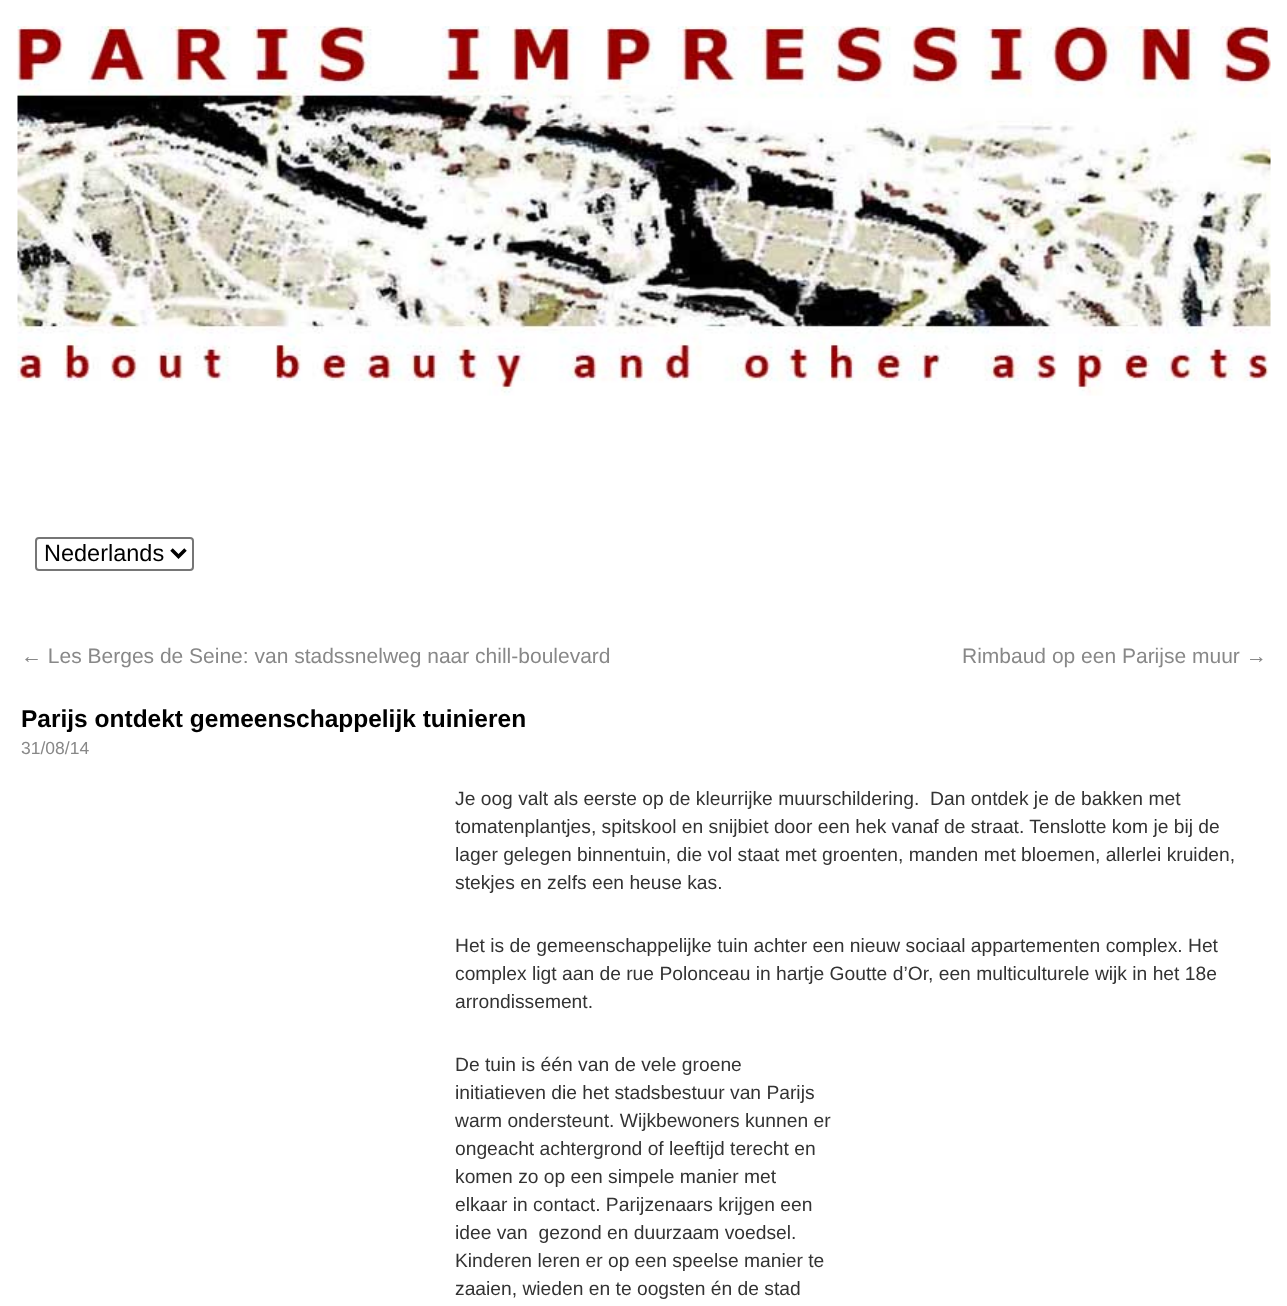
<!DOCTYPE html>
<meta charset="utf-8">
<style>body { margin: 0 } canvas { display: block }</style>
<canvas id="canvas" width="1287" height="1306"></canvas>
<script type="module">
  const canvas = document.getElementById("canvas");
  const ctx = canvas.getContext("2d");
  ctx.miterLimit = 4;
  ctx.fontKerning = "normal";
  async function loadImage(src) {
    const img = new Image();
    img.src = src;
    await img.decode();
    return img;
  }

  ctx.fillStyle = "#ffffff";
  ctx.fillRect(0, 0, 1287, 1306);
  ctx.drawImage(await loadImage("img1.png"), 17, 26, 1254, 370);
  ctx.beginPath();
  ctx.roundRect(36, 538, 157, 32, 3);
  ctx.strokeStyle = "#767676";
  ctx.lineWidth = 2;
  ctx.stroke();
  ctx.beginPath();
  ctx.moveTo(171.5, 549.5);
  ctx.lineTo(178.5, 556.5);
  ctx.lineTo(185.5, 549.5);
  ctx.strokeStyle = "#000000";
  ctx.lineWidth = 3.5;
  ctx.stroke();
  ctx.font = "23.5px Liberation Sans";
  ctx.fillStyle = "#000000";
  ctx.fillText("Nederlands", 44, 561);
  ctx.font = "21px Liberation Sans";
  ctx.fillStyle = "#888888";
  ctx.fillText("← Les Berges de Seine: van stadssnelweg naar chill-boulevard", 21, 663);
  ctx.fillText("Rimbaud op een Parijse muur →", 962, 663);
  ctx.font = "bold 24.5px Liberation Sans";
  ctx.fillStyle = "#000000";
  ctx.fillText("Parijs ontdekt gemeenschappelijk tuinieren", 21, 727);
  ctx.font = "17.5px Liberation Sans";
  ctx.fillStyle = "#888888";
  ctx.fillText("31/08/14", 21, 754);
  ctx.font = "19.25px Liberation Sans";
  ctx.fillStyle = "#333333";
  ctx.fillText("Je oog valt als eerste op de kleurrijke muurschildering.  Dan ontdek je de bakken met", 455, 805);
  ctx.fillText("tomatenplantjes, spitskool en snijbiet door een hek vanaf de straat. Tenslotte kom je bij de", 455, 833);
  ctx.fillText("lager gelegen binnentuin, die vol staat met groenten, manden met bloemen, allerlei kruiden,", 455, 861);
  ctx.fillText("stekjes en zelfs een heuse kas.", 455, 889);
  ctx.fillText("Het is de gemeenschappelijke tuin achter een nieuw sociaal appartementen complex. Het", 455, 952);
  ctx.fillText("complex ligt aan de rue Polonceau in hartje Goutte d’Or, een multiculturele wijk in het 18e", 455, 980);
  ctx.fillText("arrondissement.", 455, 1008);
  ctx.fillText("De tuin is één van de vele groene", 455, 1071);
  ctx.fillText("initiatieven die het stadsbestuur van Parijs", 455, 1099);
  ctx.fillText("warm ondersteunt. Wijkbewoners kunnen er", 455, 1127);
  ctx.fillText("ongeacht achtergrond of leeftijd terecht en", 455, 1155);
  ctx.fillText("komen zo op een simpele manier met", 455, 1183);
  ctx.fillText("elkaar in contact. Parijzenaars krijgen een", 455, 1211);
  ctx.fillText("idee van  gezond en duurzaam voedsel.", 455, 1239);
  ctx.fillText("Kinderen leren er op een speelse manier te", 455, 1267);
  ctx.fillText("zaaien, wieden en te oogsten én de stad", 455, 1295);
</script>
